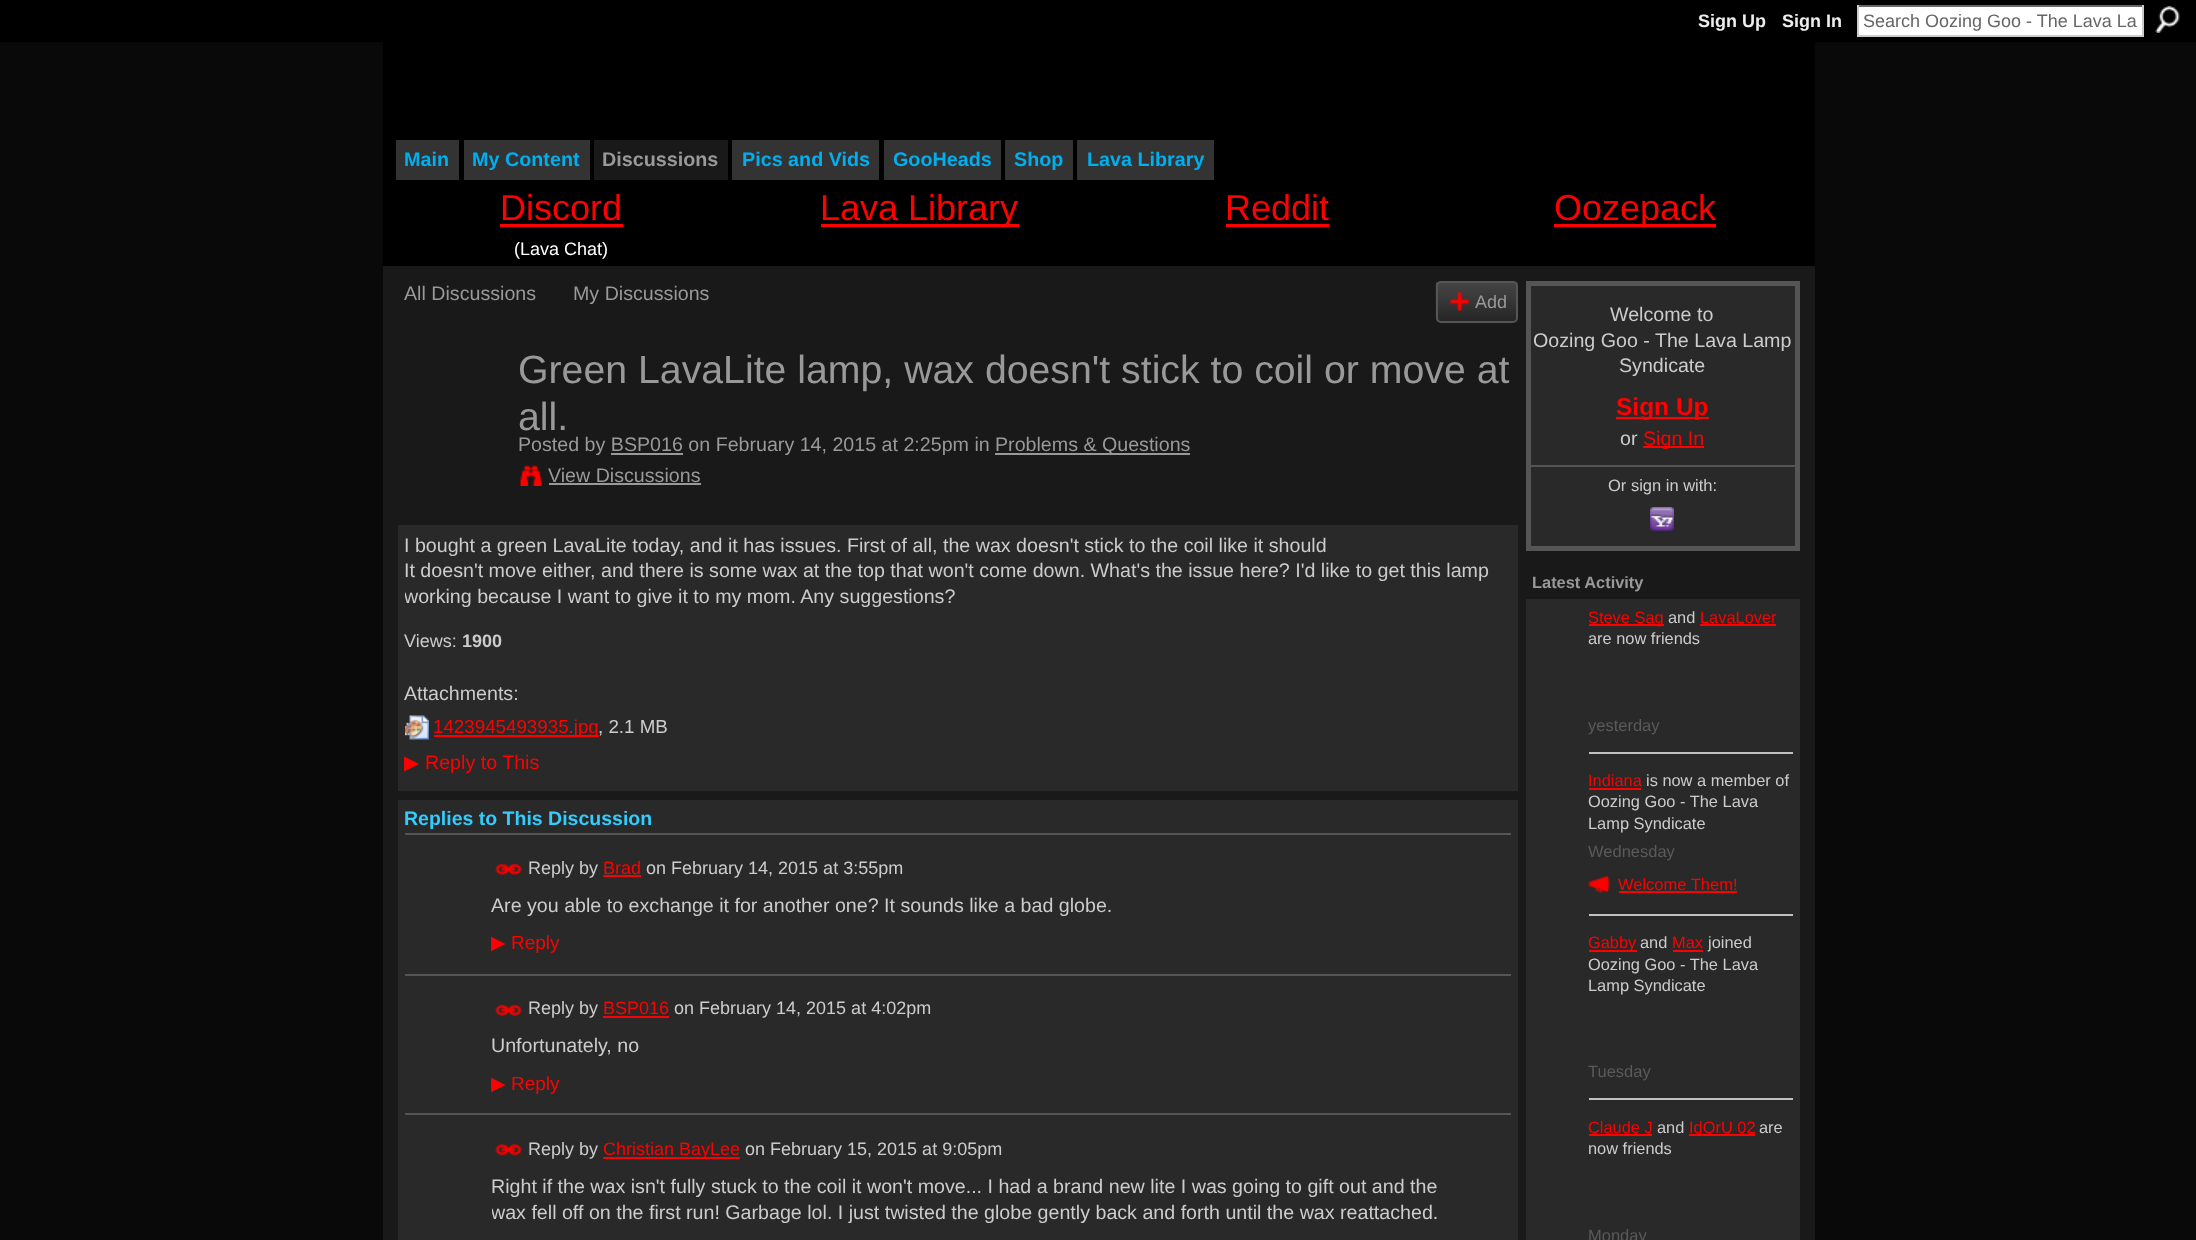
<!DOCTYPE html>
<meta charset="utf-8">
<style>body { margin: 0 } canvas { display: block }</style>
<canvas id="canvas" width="2196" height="1240"></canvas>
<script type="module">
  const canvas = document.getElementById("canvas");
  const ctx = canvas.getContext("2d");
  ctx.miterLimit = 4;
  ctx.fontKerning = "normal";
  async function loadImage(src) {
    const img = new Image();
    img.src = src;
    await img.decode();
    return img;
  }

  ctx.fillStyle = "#090909";
  ctx.fillRect(0, 0, 2196, 1240);
  ctx.fillStyle = "#000000";
  ctx.fillRect(0, 0, 2196, 42);
  ctx.font = "bold 18px Liberation Sans";
  ctx.fillStyle = "#eeeeee";
  ctx.fillText("Sign Up", 1698, 27);
  ctx.fillText("Sign In", 1782, 27);
  ctx.fillStyle = "#ffffff";
  ctx.fillRect(1859, 7, 283, 28);
  ctx.fillStyle = "#666666";
  ctx.fillRect(1857, 5, 287, 2);
  ctx.fillStyle = "#cccccc";
  ctx.fillRect(2142, 5, 2, 31);
  ctx.fillRect(1857, 35, 287, 2);
  ctx.fillRect(1857, 5, 2, 31);
  ctx.font = "18px Liberation Sans";
  ctx.fillStyle = "#666666";
  ctx.fillText("Search Oozing Goo - The Lava La", 1863, 27);
  ctx.drawImage(await loadImage("img1.png"), 2155, 6, 25, 27);
  ctx.fillStyle = "#000000";
  ctx.fillRect(383, 42, 1432, 224);
  ctx.fillStyle = "#333333";
  ctx.fillRect(396, 140, 63, 40);
  ctx.font = "bold 19.75px Liberation Sans";
  ctx.fillStyle = "#01afef";
  ctx.fillText("Main", 404, 166);
  ctx.fillStyle = "#333333";
  ctx.fillRect(464, 140, 126, 40);
  ctx.fillStyle = "#01afef";
  ctx.fillText("My Content", 472, 166);
  ctx.fillStyle = "#191919";
  ctx.fillRect(594, 140, 134, 40);
  ctx.fillStyle = "#999999";
  ctx.fillText("Discussions", 602, 166);
  ctx.fillStyle = "#333333";
  ctx.fillRect(732, 140, 147, 40);
  ctx.fillStyle = "#01afef";
  ctx.fillText("Pics and Vids", 742, 166);
  ctx.fillStyle = "#333333";
  ctx.fillRect(884, 140, 117, 40);
  ctx.fillStyle = "#01afef";
  ctx.fillText("GooHeads", 893, 166);
  ctx.fillStyle = "#333333";
  ctx.fillRect(1005, 140, 68, 40);
  ctx.fillStyle = "#01afef";
  ctx.fillText("Shop", 1014, 166);
  ctx.fillStyle = "#333333";
  ctx.fillRect(1077, 140, 137, 40);
  ctx.fillStyle = "#01afef";
  ctx.fillText("Lava Library", 1087, 166);
  ctx.font = "36px Liberation Sans";
  ctx.fillStyle = "#ff0000";
  ctx.fillText("Discord", 500, 220);
  ctx.fillRect(500, 224, 123, 3);
  ctx.font = "18px Liberation Sans";
  ctx.fillStyle = "#ffffff";
  ctx.fillText("(Lava Chat)", 514, 255);
  ctx.fillStyle = "#ff0000";
  ctx.fillRect(821, 224, 198, 3);
  ctx.font = "36px Liberation Sans";
  ctx.fillText("Lava Library", 820, 220);
  ctx.fillText("Reddit", 1225, 220);
  ctx.fillRect(1226, 224, 103, 3);
  ctx.fillRect(1554, 224, 162, 3);
  ctx.fillText("Oozepack", 1554, 220);
  ctx.fillStyle = "#191919";
  ctx.fillRect(383, 266, 1432, 974);
  ctx.font = "19.65px Liberation Sans";
  ctx.fillStyle = "#999999";
  ctx.fillText("All Discussions", 404, 300);
  ctx.fillText("My Discussions", 573, 300);
  ctx.drawImage(await loadImage("img2.png"), 1435, 282, 83, 40);
  ctx.beginPath();
  ctx.roundRect(1437, 282, 80, 40, 4);
  ctx.strokeStyle = "#555555";
  ctx.lineWidth = 2;
  ctx.stroke();
  ctx.drawImage(await loadImage("img3.png"), 1450, 292, 19, 19);
  ctx.font = "18px Liberation Sans";
  ctx.fillText("Add", 1475, 308);
  ctx.font = "39.25px Liberation Sans";
  ctx.fillText("Green LavaLite lamp, wax doesn't stick to coil or move at", 518, 383);
  ctx.fillText("all.", 518, 430);
  ctx.font = "19.65px Liberation Sans";
  ctx.fillText("Posted by BSP016 on February 14, 2015 at 2:25pm in", 518, 451);
  ctx.fillRect(995, 453, 195, 2);
  ctx.fillText("Problems & Questions", 995, 451);
  ctx.fillRect(611, 453, 72, 2);
  ctx.drawImage(await loadImage("img4.png"), 520, 464, 22, 22);
  ctx.fillText("View Discussions", 548, 482);
  ctx.fillRect(549, 483, 152, 2);
  ctx.fillStyle = "#292929";
  ctx.fillRect(398, 525, 1120, 266);
  ctx.fillStyle = "#cccccc";
  ctx.fillText("I bought a green LavaLite today, and it has issues. First of all, the wax doesn't stick to the coil like it should", 404, 552);
  ctx.fillText("It doesn't move either, and there is some wax at the top that won't come down. What's the issue here? I'd like to get this lamp", 404, 577);
  ctx.save();
  ctx.beginPath();
  ctx.rect(405, 533, 1106, 76);
  ctx.clip();
  ctx.fillText("working because I want to give it to my mom. Any suggestions?", 404, 603);
  ctx.restore();
  ctx.font = "18px Liberation Sans";
  ctx.fillText("Views:", 404, 647);
  ctx.font = "bold 18px Liberation Sans";
  ctx.fillText("1900", 462, 647);
  ctx.font = "19.65px Liberation Sans";
  ctx.fillText("Attachments:", 404, 700);
  ctx.drawImage(await loadImage("img5.png"), 405, 715, 24, 25);
  ctx.fillStyle = "#ff0000";
  ctx.fillRect(434, 735, 165, 2);
  ctx.font = "18.75px Liberation Sans";
  ctx.fillText("1423945493935.jpg", 433, 733);
  ctx.fillStyle = "#cccccc";
  ctx.fillText(", 2.1 MB", 598, 733);
  ctx.font = "19.65px DejaVu Sans";
  ctx.fillStyle = "#ff0000";
  ctx.fillText("▶", 404, 769);
  ctx.font = "19.65px Liberation Sans";
  ctx.fillText("Reply to This", 425, 769);
  ctx.fillStyle = "#292929";
  ctx.fillRect(398, 800, 1120, 440);
  ctx.font = "bold 19.5px Liberation Sans";
  ctx.fillStyle = "#33ccff";
  ctx.fillText("Replies to This Discussion", 404, 825);
  ctx.fillStyle = "#555555";
  ctx.fillRect(405, 833, 1106, 2);
  ctx.drawImage(await loadImage("img6.png"), 495, 863, 28, 12);
  ctx.font = "18px Liberation Sans";
  ctx.fillStyle = "#cccccc";
  ctx.fillText("Reply by", 528, 874);
  ctx.fillStyle = "#ff0000";
  ctx.fillText("Brad", 603, 874);
  ctx.fillRect(603, 875, 38, 2);
  ctx.fillStyle = "#cccccc";
  ctx.fillText("on February 14, 2015 at 3:55pm", 646, 874);
  ctx.font = "19.65px Liberation Sans";
  ctx.fillText("Are you able to exchange it for another one? It sounds like a bad globe.", 491, 912);
  ctx.font = "19px DejaVu Sans";
  ctx.fillStyle = "#ff0000";
  ctx.fillText("▶", 491, 949);
  ctx.font = "19px Liberation Sans";
  ctx.fillText("Reply", 511, 949);
  ctx.fillStyle = "#555555";
  ctx.fillRect(405, 974, 1106, 2);
  ctx.drawImage(await loadImage("img6.png"), 495, 1004, 28, 12);
  ctx.font = "18px Liberation Sans";
  ctx.fillStyle = "#cccccc";
  ctx.fillText("Reply by", 528, 1014);
  ctx.fillStyle = "#ff0000";
  ctx.fillText("BSP016", 603, 1014);
  ctx.fillRect(603, 1016, 66, 2);
  ctx.fillStyle = "#cccccc";
  ctx.fillText("on February 14, 2015 at 4:02pm", 674, 1014);
  ctx.font = "19.65px Liberation Sans";
  ctx.fillText("Unfortunately, no", 491, 1052);
  ctx.font = "19px DejaVu Sans";
  ctx.fillStyle = "#ff0000";
  ctx.fillText("▶", 491, 1090);
  ctx.font = "19px Liberation Sans";
  ctx.fillText("Reply", 511, 1090);
  ctx.fillStyle = "#555555";
  ctx.fillRect(405, 1113, 1106, 2);
  ctx.drawImage(await loadImage("img7.png"), 495, 1144, 28, 12);
  ctx.font = "18px Liberation Sans";
  ctx.fillStyle = "#cccccc";
  ctx.fillText("Reply by", 528, 1155);
  ctx.fillStyle = "#ff0000";
  ctx.fillRect(603, 1157, 137, 2);
  ctx.fillText("Christian BayLee", 603, 1155);
  ctx.fillStyle = "#cccccc";
  ctx.fillText("on February 15, 2015 at 9:05pm", 745, 1155);
  ctx.font = "19.65px Liberation Sans";
  ctx.fillText("Right if the wax isn't fully stuck to the coil it won't move... I had a brand new lite I was going to gift out and the", 491, 1193);
  ctx.save();
  ctx.beginPath();
  ctx.rect(492, 1173, 966, 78);
  ctx.clip();
  ctx.fillText("wax fell off on the first run! Garbage lol. I just twisted the globe gently back and forth until the wax reattached.", 491, 1219);
  ctx.restore();
  ctx.fillStyle = "#292929";
  ctx.beginPath();
  ctx.rect(1528.5, 283.5, 269, 265);
  ctx.fill();
  ctx.lineWidth = 5;
  ctx.stroke();
  ctx.fillStyle = "#cccccc";
  ctx.fillText("Welcome to", 1610, 321);
  ctx.fillText("Oozing Goo - The Lava Lamp", 1533, 347);
  ctx.fillText("Syndicate", 1619, 372);
  ctx.fillStyle = "#ff0000";
  ctx.fillRect(1616, 417, 93, 2);
  ctx.font = "bold 24.5px Liberation Sans";
  ctx.fillText("Sign Up", 1616, 415);
  ctx.font = "19.65px Liberation Sans";
  ctx.fillStyle = "#cccccc";
  ctx.fillText("or", 1620, 445);
  ctx.fillStyle = "#ff0000";
  ctx.fillRect(1643, 446, 61, 2);
  ctx.fillText("Sign In", 1643, 445);
  ctx.fillStyle = "#555555";
  ctx.fillRect(1530, 465, 266, 2);
  ctx.font = "16.5px Liberation Sans";
  ctx.fillStyle = "#cccccc";
  ctx.fillText("Or sign in with:", 1608, 491);
  ctx.drawImage(await loadImage("img8.png"), 1650, 507, 24, 24);
  ctx.font = "bold 16.4px Liberation Sans";
  ctx.fillStyle = "#999999";
  ctx.fillText("Latest Activity", 1532, 588);
  ctx.fillStyle = "#292929";
  ctx.fillRect(1526, 599, 274, 641);
  ctx.fillStyle = "#c0c0c0";
  ctx.fillRect(1589, 752, 204, 2);
  ctx.fillStyle = "#ff0000";
  ctx.fillRect(1589, 624, 75, 2);
  ctx.font = "16.4px Liberation Sans";
  ctx.fillText("Steve Sag", 1588, 623);
  ctx.fillStyle = "#cccccc";
  ctx.fillText("and", 1668, 623);
  ctx.fillStyle = "#ff0000";
  ctx.fillText("LavaLover", 1700, 623);
  ctx.fillRect(1700, 624, 76, 2);
  ctx.fillStyle = "#cccccc";
  ctx.fillText("are now friends", 1588, 644);
  ctx.font = "16.5px Liberation Sans";
  ctx.fillStyle = "#5a5a5a";
  ctx.fillText("yesterday", 1588, 731);
  ctx.fillStyle = "#c0c0c0";
  ctx.fillRect(1589, 914, 204, 2);
  ctx.font = "16.4px Liberation Sans";
  ctx.fillStyle = "#ff0000";
  ctx.fillText("Indiana", 1588, 786);
  ctx.fillRect(1589, 788, 52, 2);
  ctx.fillStyle = "#cccccc";
  ctx.fillText("is now a member of", 1646, 786);
  ctx.fillText("Oozing Goo - The Lava", 1588, 807);
  ctx.fillText("Lamp Syndicate", 1588, 829);
  ctx.font = "16.5px Liberation Sans";
  ctx.fillStyle = "#5a5a5a";
  ctx.fillText("Wednesday", 1588, 857);
  ctx.drawImage(await loadImage("img9.png"), 1588, 875, 22, 18);
  ctx.fillStyle = "#ff0000";
  ctx.fillText("Welcome Them!", 1618, 890);
  ctx.fillRect(1619, 891, 118, 2);
  ctx.fillStyle = "#c0c0c0";
  ctx.fillRect(1589, 1098, 204, 2);
  ctx.fillStyle = "#ff0000";
  ctx.fillRect(1589, 950, 48, 2);
  ctx.font = "16.4px Liberation Sans";
  ctx.fillText("Gabby", 1588, 948);
  ctx.fillStyle = "#cccccc";
  ctx.fillText("and", 1640, 948);
  ctx.fillStyle = "#ff0000";
  ctx.fillText("Max", 1672, 948);
  ctx.fillRect(1673, 950, 30, 2);
  ctx.fillStyle = "#cccccc";
  ctx.fillText("joined", 1708, 948);
  ctx.fillText("Oozing Goo - The Lava", 1588, 970);
  ctx.fillText("Lamp Syndicate", 1588, 991);
  ctx.font = "16.5px Liberation Sans";
  ctx.fillStyle = "#5a5a5a";
  ctx.fillText("Tuesday", 1588, 1077);
  ctx.font = "16.4px Liberation Sans";
  ctx.fillStyle = "#ff0000";
  ctx.fillText("Claude J", 1588, 1133);
  ctx.fillRect(1589, 1134, 63, 2);
  ctx.fillStyle = "#cccccc";
  ctx.fillText("and", 1657, 1133);
  ctx.fillStyle = "#ff0000";
  ctx.fillText("IdOrU 02", 1689, 1133);
  ctx.fillRect(1689, 1134, 66, 2);
  ctx.fillStyle = "#cccccc";
  ctx.fillText("are", 1759, 1133);
  ctx.fillText("now friends", 1588, 1154);
  ctx.font = "16.5px Liberation Sans";
  ctx.fillStyle = "#5a5a5a";
  ctx.fillText("Monday", 1588, 1241);
</script>
